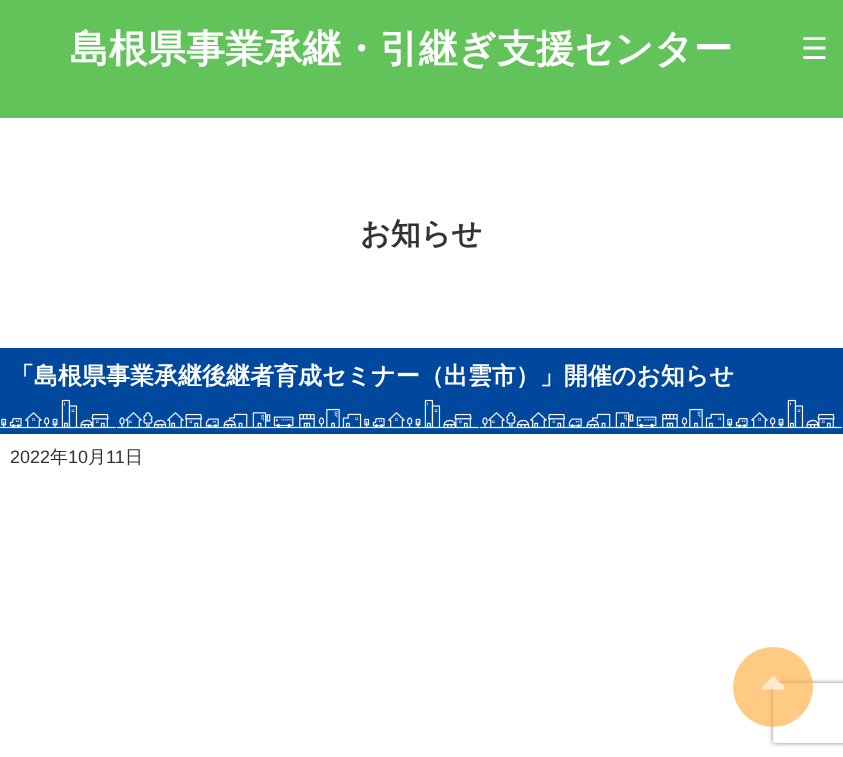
<!DOCTYPE html>
<meta charset="utf-8">
<style>body { margin: 0 } canvas { display: block }</style>
<canvas id="canvas" width="843" height="757"></canvas>
<script type="module">
  const canvas = document.getElementById("canvas");
  const ctx = canvas.getContext("2d");
  ctx.miterLimit = 4;
  ctx.fontKerning = "normal";
  async function loadImage(src) {
    const img = new Image();
    img.src = src;
    await img.decode();
    return img;
  }

  ctx.fillStyle = "#ffffff";
  ctx.fillRect(0, 0, 843, 757);
  ctx.fillStyle = "#61c359";
  ctx.fillRect(0, 0, 843, 118);
  ctx.font = "bold 38.75px WenQuanYi Zen Hei";
  ctx.fillStyle = "#ffffff";
  ctx.fillText("島根県事業承継・引継ぎ支援センター", 70, 62);
  ctx.font = "30px DejaVu Sans";
  ctx.fillText("☰", 801, 59);
  ctx.font = "bold 30px WenQuanYi Zen Hei";
  ctx.fillStyle = "#333333";
  ctx.fillText("お知らせ", 360, 244);
  ctx.fillStyle = "#00489d";
  ctx.fillRect(0, 348, 843, 86);
  ctx.drawImage(await loadImage("img1.png"), 0, 399, 843, 30);
  ctx.font = "bold 24px WenQuanYi Zen Hei";
  ctx.fillStyle = "#ffffff";
  ctx.fillText("「島根県事業承継後継者育成セミナー（出雲市）」開催のお知らせ", 10, 384);
  ctx.font = "18px Liberation Sans";
  ctx.fillStyle = "#333333";
  ctx.fillText("2022", 10, 463);
  ctx.font = "500 18px WenQuanYi Zen Hei";
  ctx.fillText("年", 50, 463);
  ctx.font = "18px Liberation Sans";
  ctx.fillText("10", 68, 463);
  ctx.font = "500 18px WenQuanYi Zen Hei";
  ctx.fillText("月", 88, 463);
  ctx.font = "18px Liberation Sans";
  ctx.fillText("11", 106, 463);
  ctx.font = "500 18px WenQuanYi Zen Hei";
  ctx.fillText("日", 125, 463);
  ctx.save();
  ctx.beginPath();
  ctx.moveTo(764, 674);
  ctx.lineTo(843, 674);
  ctx.lineTo(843, 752);
  ctx.lineTo(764, 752);
  ctx.closePath();
  ctx.moveTo(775, 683);
  ctx.lineTo(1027, 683);
  ctx.bezierCurveTo(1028, 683, 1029, 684, 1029, 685);
  ctx.lineTo(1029, 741);
  ctx.bezierCurveTo(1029, 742, 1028, 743, 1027, 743);
  ctx.lineTo(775, 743);
  ctx.bezierCurveTo(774, 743, 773, 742, 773, 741);
  ctx.lineTo(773, 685);
  ctx.bezierCurveTo(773, 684, 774, 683, 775, 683);
  ctx.closePath();
  ctx.clip("evenodd");
  ctx.fillStyle = "#808080";
  ctx.filter = "blur(2.5px)";
  ctx.beginPath();
  ctx.roundRect(773, 683, 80, 60, 2);
  ctx.fill();
  ctx.filter = "none";
  ctx.restore();
  ctx.fillStyle = "rgba(255, 166, 49, 0.6)";
  ctx.beginPath();
  ctx.arc(773, 687, 40, 0, Math.PI * 2);
  ctx.fill();
  ctx.drawImage(await loadImage("img2.png"), 762, 676, 23, 14);
</script>
